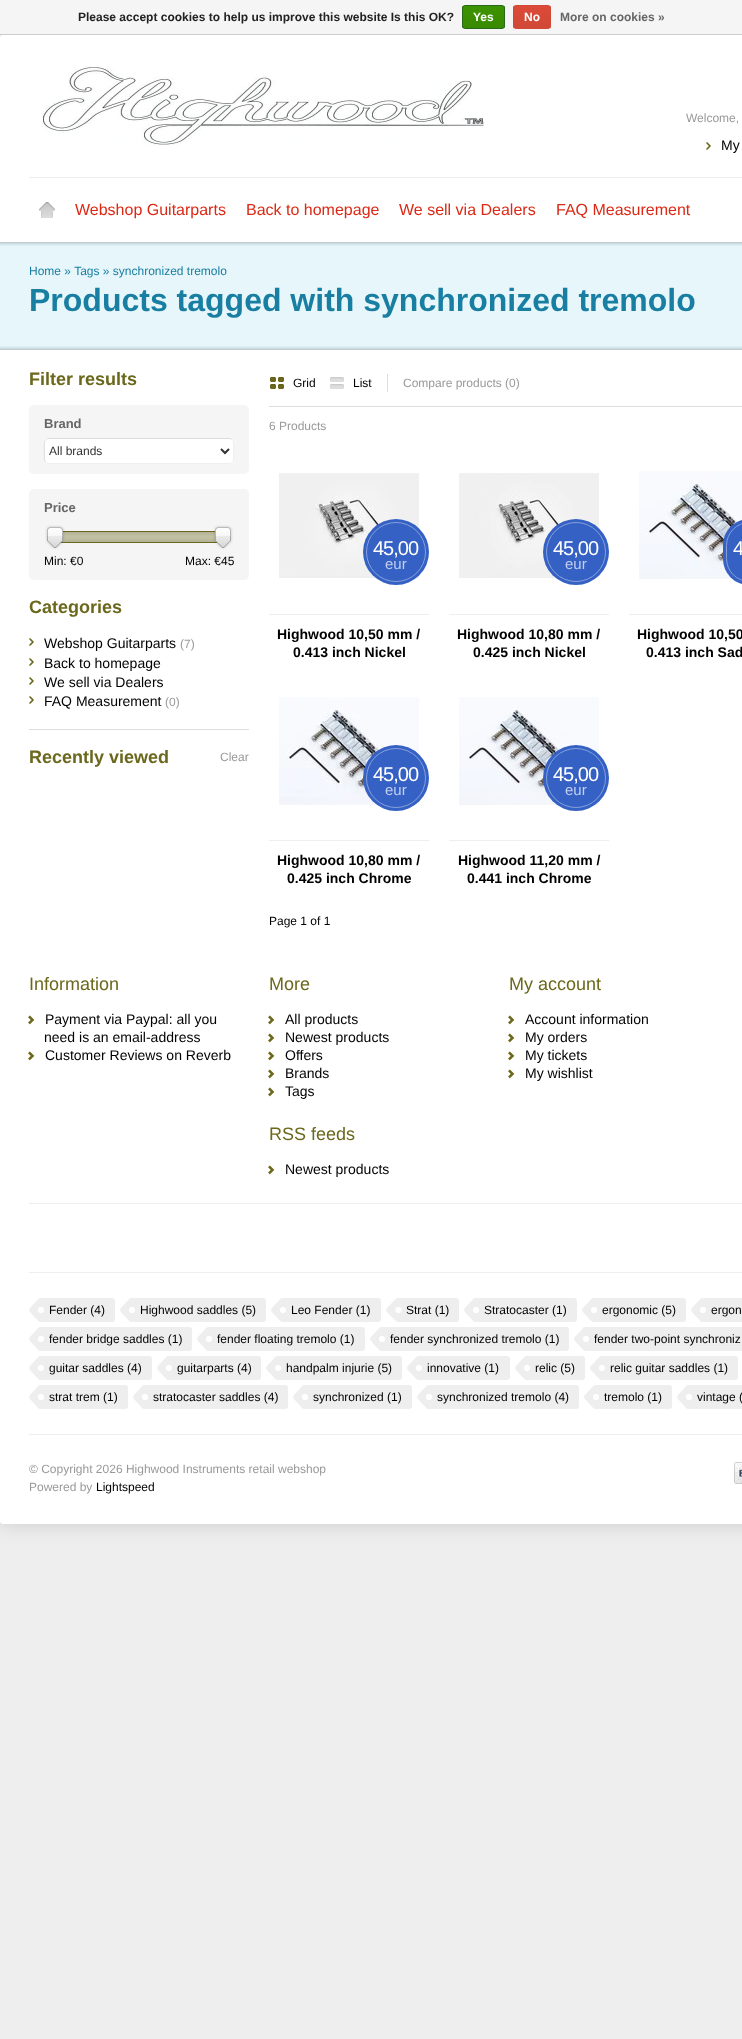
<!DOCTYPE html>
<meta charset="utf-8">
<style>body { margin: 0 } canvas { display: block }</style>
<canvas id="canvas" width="742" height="2039"></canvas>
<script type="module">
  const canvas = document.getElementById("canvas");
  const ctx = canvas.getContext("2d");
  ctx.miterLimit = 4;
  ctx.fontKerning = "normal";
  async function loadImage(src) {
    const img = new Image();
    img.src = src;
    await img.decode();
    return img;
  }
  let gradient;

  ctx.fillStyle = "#eeeeee";
  ctx.fillRect(0, 0, 742, 2039);
  ctx.fillStyle = "rgba(0, 0, 0, 0.15)";
  ctx.filter = "blur(10px)";
  ctx.beginPath();
  ctx.roundRect(0, 35, 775, 1489, 3);
  ctx.fill();
  ctx.filter = "none";
  ctx.fillStyle = "#f5f5f5";
  ctx.fillRect(0, 0, 742, 34);
  ctx.fillStyle = "#cccccc";
  ctx.fillRect(0, 34, 742, 1);
  ctx.font = "bold 12px Liberation Sans";
  ctx.fillStyle = "#222222";
  ctx.fillText("Please accept cookies to help us improve this website Is this OK?", 78, 21);
  ctx.save();
  ctx.beginPath();
  ctx.roundRect(462, 5, 43, 24, 3);
  ctx.clip();
  gradient = ctx.createLinearGradient(484, 6, 484, 28);
  gradient.addColorStop(0, "#3c9300");
  gradient.addColorStop(1, "#398a00");
  ctx.fillStyle = gradient;
  ctx.fillRect(462, 6, 43, 22);
  ctx.restore();
  ctx.beginPath();
  ctx.roundRect(462.5, 5.5, 42, 23, 2.5);
  ctx.strokeStyle = "#29691d";
  ctx.stroke();
  ctx.fillStyle = "#ffffff";
  ctx.fillText("Yes", 473, 21);
  ctx.save();
  ctx.beginPath();
  ctx.roundRect(513, 5, 38, 24, 3);
  ctx.clip();
  gradient = ctx.createLinearGradient(532, 6, 532, 28);
  gradient.addColorStop(0, "#dc4a38");
  gradient.addColorStop(1, "#d14836");
  ctx.fillStyle = gradient;
  ctx.fillRect(513, 6, 38, 22);
  ctx.restore();
  ctx.beginPath();
  ctx.roundRect(513.5, 5.5, 37, 23, 2.5);
  ctx.strokeStyle = "#d14836";
  ctx.stroke();
  ctx.fillText("No", 524, 21);
  ctx.fillStyle = "#666666";
  ctx.fillText("More on cookies »", 560, 21);
  ctx.fillStyle = "#ffffff";
  ctx.beginPath();
  ctx.roundRect(0, 35, 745, 1489, 3);
  ctx.fill();
  ctx.drawImage(await loadImage("img1.png"), 41, 66, 443, 80);
  ctx.font = "12px Liberation Sans";
  ctx.fillStyle = "#999999";
  ctx.fillText("Welcome,", 686, 122);
  ctx.fillStyle = "#6b681d";
  ctx.fillRect(706, 142, 5, 8);
  ctx.drawImage(await loadImage("img2.png"), 706, 137, 36, 16);
  ctx.font = "14px Liberation Sans";
  ctx.fillStyle = "#000000";
  ctx.fillText("My", 721, 150);
  ctx.fillStyle = "#eeeeee";
  ctx.fillRect(29, 177, 713, 1);
  ctx.fillStyle = "#dddddd";
  ctx.fillRect(39, 202, 16, 16);
  ctx.drawImage(await loadImage("img3.png"), 29, 194, 36, 32);
  ctx.font = "16px Liberation Sans";
  ctx.fillStyle = "#db2915";
  ctx.fillText("Webshop Guitarparts", 75, 215);
  ctx.fillText("Back to homepage", 246, 215);
  ctx.fillText("We sell via Dealers", 399, 215);
  ctx.fillText("FAQ Measurement", 556, 215);
  ctx.fillStyle = "#e6f6fa";
  ctx.fillRect(0, 242, 742, 108);
  ctx.drawImage(await loadImage("img4.png"), 0, 242, 742, 4);
  ctx.font = "12px Liberation Sans";
  ctx.fillStyle = "#187ea2";
  ctx.fillText("Home » Tags » synchronized tremolo", 29, 275);
  ctx.font = "bold 32px Liberation Sans";
  ctx.fillText("Products tagged with synchronized tremolo", 29, 311);
  ctx.drawImage(await loadImage("img5.png"), 0, 346, 742, 4);
  ctx.font = "bold 18px Liberation Sans";
  ctx.fillStyle = "#6b681d";
  ctx.fillText("Filter results", 29, 385);
  ctx.fillStyle = "#f5f5f5";
  ctx.beginPath();
  ctx.roundRect(29, 405, 220, 69, 5);
  ctx.fill();
  ctx.font = "bold 13px Liberation Sans";
  ctx.fillStyle = "#666666";
  ctx.fillText("Brand", 44, 428);
  ctx.fillStyle = "#ffffff";
  ctx.beginPath();
  ctx.roundRect(44, 438, 190, 26, 4);
  ctx.fill();
  ctx.beginPath();
  ctx.moveTo(232.5, 439.5);
  ctx.bezierCurveTo(234.5, 441.5, 233.5, 448.5, 233.5, 451);
  ctx.bezierCurveTo(233.5, 453.5, 234.5, 460.5, 232, 462.5);
  ctx.lineTo(230.5, 463.5);
  ctx.lineTo(48, 463.5);
  ctx.lineTo(45.5, 462.5);
  ctx.strokeStyle = "#eeeeee";
  ctx.stroke();
  ctx.beginPath();
  ctx.moveTo(45.5, 462.5);
  ctx.bezierCurveTo(43.5, 460.5, 44.5, 453.5, 44.5, 451);
  ctx.bezierCurveTo(44.5, 448.5, 43.5, 441.5, 46, 439.5);
  ctx.lineTo(47.5, 438.5);
  ctx.lineTo(230, 438.5);
  ctx.lineTo(232.5, 439.5);
  ctx.strokeStyle = "#dddddd";
  ctx.stroke();
  ctx.beginPath();
  ctx.moveTo(221, 449);
  ctx.lineTo(225, 453);
  ctx.lineTo(229, 449);
  ctx.strokeStyle = "#333333";
  ctx.lineWidth = 2;
  ctx.stroke();
  ctx.font = "12px Liberation Sans";
  ctx.fillStyle = "#333333";
  ctx.fillText("All brands", 49, 455);
  ctx.fillStyle = "#f5f5f5";
  ctx.beginPath();
  ctx.roundRect(29, 489, 220, 91, 5);
  ctx.fill();
  ctx.font = "bold 13px Liberation Sans";
  ctx.fillStyle = "#666666";
  ctx.fillText("Price", 44, 512);
  ctx.fillStyle = "#c3c2a4";
  ctx.fillRect(61, 532, 156, 10);
  ctx.drawImage(await loadImage("img8.png"), 61, 532, 156, 10);
  ctx.strokeStyle = "#6b681d";
  ctx.lineWidth = 1;
  ctx.strokeRect(54.5, 531.5, 169, 11);
  ctx.drawImage(await loadImage("img6.png"), 45, 525, 20, 24);
  ctx.drawImage(await loadImage("img7.png"), 213, 525, 20, 24);
  ctx.font = "12px Liberation Sans";
  ctx.fillStyle = "#000000";
  ctx.fillText("Min: €0", 44, 565);
  ctx.fillText("Max: €45", 185, 565);
  ctx.fillStyle = "#dddddd";
  ctx.fillRect(29, 729, 220, 1);
  ctx.font = "bold 18px Liberation Sans";
  ctx.fillStyle = "#6b681d";
  ctx.fillText("Categories", 29, 613);
  ctx.fillRect(29, 638, 5, 8);
  ctx.drawImage(await loadImage("img9.png"), 29, 633, 15, 15);
  ctx.font = "14px Liberation Sans";
  ctx.fillStyle = "#000000";
  ctx.fillText("Webshop Guitarparts", 44, 648);
  ctx.font = "12px Liberation Sans";
  ctx.fillStyle = "#999999";
  ctx.fillText("(7)", 180, 648);
  ctx.fillStyle = "#6b681d";
  ctx.fillRect(29, 658, 5, 8);
  ctx.drawImage(await loadImage("img9.png"), 29, 653, 15, 15);
  ctx.font = "14px Liberation Sans";
  ctx.fillStyle = "#000000";
  ctx.fillText("Back to homepage", 44, 668);
  ctx.fillStyle = "#6b681d";
  ctx.fillRect(29, 677, 5, 8);
  ctx.drawImage(await loadImage("img9.png"), 29, 672, 15, 15);
  ctx.fillStyle = "#000000";
  ctx.fillText("We sell via Dealers", 44, 687);
  ctx.fillStyle = "#6b681d";
  ctx.fillRect(29, 696, 5, 8);
  ctx.drawImage(await loadImage("img9.png"), 29, 691, 15, 15);
  ctx.fillStyle = "#000000";
  ctx.fillText("FAQ Measurement", 44, 706);
  ctx.font = "12px Liberation Sans";
  ctx.fillStyle = "#999999";
  ctx.fillText("(0)", 165, 706);
  ctx.font = "bold 18px Liberation Sans";
  ctx.fillStyle = "#6b681d";
  ctx.fillText("Recently viewed", 29, 763);
  ctx.font = "12px Liberation Sans";
  ctx.fillStyle = "#999999";
  ctx.fillText("Clear", 220, 761);
  ctx.fillStyle = "#dddddd";
  ctx.fillRect(269, 406, 473, 1);
  ctx.fillStyle = "#6b681d";
  ctx.fillRect(270, 377, 14, 12);
  ctx.drawImage(await loadImage("img10.png"), 269, 375, 16, 16);
  ctx.fillStyle = "#000000";
  ctx.fillText("Grid", 293, 387);
  ctx.fillStyle = "#dddddd";
  ctx.fillRect(330, 377, 14, 12);
  ctx.drawImage(await loadImage("img11.png"), 329, 375, 16, 16);
  ctx.fillStyle = "#000000";
  ctx.fillText("List", 353, 387);
  ctx.fillStyle = "#dddddd";
  ctx.fillRect(387, 374, 1, 18);
  ctx.fillStyle = "#999999";
  ctx.fillText("Compare products (0)", 403, 387);
  ctx.fillText("6 Products", 269, 430);
  ctx.drawImage(await loadImage("img12.png"), 279, 473, 140, 105);
  ctx.fillStyle = "#3560c4";
  ctx.beginPath();
  ctx.arc(396, 552, 33, 0, Math.PI * 2);
  ctx.fill();
  ctx.beginPath();
  ctx.arc(396, 552, 29.5, 0, Math.PI * 2);
  ctx.strokeStyle = "#86a0dc";
  ctx.stroke();
  ctx.letterSpacing = "-1px";
  ctx.font = "20px Liberation Sans";
  ctx.fillStyle = "#ffffff";
  ctx.fillText("45,00", 373, 555);
  ctx.letterSpacing = "0px";
  ctx.font = "15px Liberation Sans";
  ctx.fillStyle = "#c2cfed";
  ctx.fillText("eur", 385, 569);
  ctx.fillStyle = "#eeeeee";
  ctx.fillRect(269, 614, 160, 1);
  ctx.font = "bold 14px Liberation Sans";
  ctx.fillStyle = "#000000";
  ctx.fillText("Highwood 10,50 mm /", 277, 639);
  ctx.fillText("0.413 inch Nickel", 293, 657);
  ctx.drawImage(await loadImage("img13.png"), 459, 473, 140, 105);
  ctx.fillStyle = "#3560c4";
  ctx.beginPath();
  ctx.arc(576, 552, 33, 0, Math.PI * 2);
  ctx.fill();
  ctx.beginPath();
  ctx.arc(576, 552, 29.5, 0, Math.PI * 2);
  ctx.stroke();
  ctx.letterSpacing = "-1px";
  ctx.font = "20px Liberation Sans";
  ctx.fillStyle = "#ffffff";
  ctx.fillText("45,00", 553, 555);
  ctx.letterSpacing = "0px";
  ctx.font = "15px Liberation Sans";
  ctx.fillStyle = "#c2cfed";
  ctx.fillText("eur", 565, 569);
  ctx.fillStyle = "#eeeeee";
  ctx.fillRect(449, 614, 160, 1);
  ctx.font = "bold 14px Liberation Sans";
  ctx.fillStyle = "#000000";
  ctx.fillText("Highwood 10,80 mm /", 457, 639);
  ctx.fillText("0.425 inch Nickel", 473, 657);
  ctx.drawImage(await loadImage("img14.png"), 639, 471, 103, 108);
  ctx.fillStyle = "#3560c4";
  ctx.beginPath();
  ctx.roundRect(723, 519, 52, 66, 33);
  ctx.fill();
  ctx.beginPath();
  ctx.roundRect(726.5, 522.5, 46, 59, 29.5);
  ctx.stroke();
  ctx.letterSpacing = "-1px";
  ctx.font = "20px Liberation Sans";
  ctx.fillStyle = "#ffffff";
  ctx.fillText("4", 733, 555);
  ctx.fillStyle = "#eeeeee";
  ctx.fillRect(629, 614, 113, 1);
  ctx.letterSpacing = "0px";
  ctx.font = "bold 14px Liberation Sans";
  ctx.fillStyle = "#000000";
  ctx.fillText("Highwood 10,50", 637, 639);
  ctx.fillText("0.413 inch Sad", 646, 657);
  ctx.drawImage(await loadImage("img15.png"), 279, 697, 140, 108);
  ctx.fillStyle = "#3560c4";
  ctx.beginPath();
  ctx.arc(396, 778, 33, 0, Math.PI * 2);
  ctx.fill();
  ctx.beginPath();
  ctx.arc(396, 778, 29.5, 0, Math.PI * 2);
  ctx.stroke();
  ctx.letterSpacing = "-1px";
  ctx.font = "20px Liberation Sans";
  ctx.fillStyle = "#ffffff";
  ctx.fillText("45,00", 373, 781);
  ctx.letterSpacing = "0px";
  ctx.font = "15px Liberation Sans";
  ctx.fillStyle = "#c2cfed";
  ctx.fillText("eur", 385, 795);
  ctx.fillStyle = "#eeeeee";
  ctx.fillRect(269, 840, 160, 1);
  ctx.font = "bold 14px Liberation Sans";
  ctx.fillStyle = "#000000";
  ctx.fillText("Highwood 10,80 mm /", 277, 865);
  ctx.fillText("0.425 inch Chrome", 287, 883);
  ctx.drawImage(await loadImage("img16.png"), 459, 697, 140, 108);
  ctx.fillStyle = "#3560c4";
  ctx.beginPath();
  ctx.arc(576, 778, 33, 0, Math.PI * 2);
  ctx.fill();
  ctx.beginPath();
  ctx.arc(576, 778, 29.5, 0, Math.PI * 2);
  ctx.stroke();
  ctx.letterSpacing = "-1px";
  ctx.font = "20px Liberation Sans";
  ctx.fillStyle = "#ffffff";
  ctx.fillText("45,00", 553, 781);
  ctx.letterSpacing = "0px";
  ctx.font = "15px Liberation Sans";
  ctx.fillStyle = "#c2cfed";
  ctx.fillText("eur", 565, 795);
  ctx.fillStyle = "#eeeeee";
  ctx.fillRect(449, 840, 160, 1);
  ctx.font = "bold 14px Liberation Sans";
  ctx.fillStyle = "#000000";
  ctx.fillText("Highwood 11,20 mm /", 458, 865);
  ctx.fillText("0.441 inch Chrome", 467, 883);
  ctx.font = "12px Liberation Sans";
  ctx.fillText("Page 1 of 1", 269, 925);
  ctx.fillStyle = "#eeeeee";
  ctx.fillRect(29, 1203, 713, 1);
  ctx.font = "18px Liberation Sans";
  ctx.fillStyle = "#6b681d";
  ctx.fillText("Information", 29, 990);
  ctx.drawImage(await loadImage("img17.png"), 28, 1015, 7, 10);
  ctx.font = "14px Liberation Sans";
  ctx.fillStyle = "#000000";
  ctx.fillText("Payment via Paypal: all you", 45, 1024);
  ctx.fillText("need is an email-address", 44, 1042);
  ctx.drawImage(await loadImage("img17.png"), 28, 1051, 7, 10);
  ctx.fillText("Customer Reviews on Reverb", 45, 1060);
  ctx.font = "18px Liberation Sans";
  ctx.fillStyle = "#6b681d";
  ctx.fillText("More", 269, 990);
  ctx.drawImage(await loadImage("img17.png"), 268, 1015, 7, 10);
  ctx.font = "14px Liberation Sans";
  ctx.fillStyle = "#000000";
  ctx.fillText("All products", 285, 1024);
  ctx.drawImage(await loadImage("img17.png"), 268, 1033, 7, 10);
  ctx.fillText("Newest products", 285, 1042);
  ctx.drawImage(await loadImage("img17.png"), 268, 1051, 7, 10);
  ctx.fillText("Offers", 285, 1060);
  ctx.drawImage(await loadImage("img17.png"), 268, 1069, 7, 10);
  ctx.fillText("Brands", 285, 1078);
  ctx.drawImage(await loadImage("img17.png"), 268, 1087, 7, 10);
  ctx.fillText("Tags", 285, 1096);
  ctx.font = "18px Liberation Sans";
  ctx.fillStyle = "#6b681d";
  ctx.fillText("RSS feeds", 269, 1140);
  ctx.drawImage(await loadImage("img17.png"), 268, 1165, 7, 10);
  ctx.font = "14px Liberation Sans";
  ctx.fillStyle = "#000000";
  ctx.fillText("Newest products", 285, 1174);
  ctx.font = "18px Liberation Sans";
  ctx.fillStyle = "#6b681d";
  ctx.fillText("My account", 509, 990);
  ctx.drawImage(await loadImage("img17.png"), 508, 1015, 7, 10);
  ctx.font = "14px Liberation Sans";
  ctx.fillStyle = "#000000";
  ctx.fillText("Account information", 525, 1024);
  ctx.drawImage(await loadImage("img17.png"), 508, 1033, 7, 10);
  ctx.fillText("My orders", 525, 1042);
  ctx.drawImage(await loadImage("img17.png"), 508, 1051, 7, 10);
  ctx.fillText("My tickets", 525, 1060);
  ctx.drawImage(await loadImage("img17.png"), 508, 1069, 7, 10);
  ctx.fillText("My wishlist", 525, 1078);
  ctx.fillStyle = "#eeeeee";
  ctx.fillRect(29, 1272, 713, 1);
  ctx.fillRect(29, 1434, 713, 1);
  ctx.beginPath();
  ctx.roundRect(29, 1298, 86, 24, [0, 3, 3, 0]);
  ctx.fill();
  ctx.drawImage(await loadImage("img18.png"), 29, 1298, 15, 24);
  ctx.font = "12px Liberation Sans";
  ctx.fillStyle = "#000000";
  ctx.fillText("Fender (4)", 49, 1314);
  ctx.fillStyle = "#eeeeee";
  ctx.beginPath();
  ctx.roundRect(120, 1298, 146, 24, [0, 3, 3, 0]);
  ctx.fill();
  ctx.drawImage(await loadImage("img18.png"), 120, 1298, 15, 24);
  ctx.fillStyle = "#000000";
  ctx.fillText("Highwood saddles (5)", 140, 1314);
  ctx.fillStyle = "#eeeeee";
  ctx.beginPath();
  ctx.roundRect(271, 1298, 110, 24, [0, 3, 3, 0]);
  ctx.fill();
  ctx.drawImage(await loadImage("img18.png"), 271, 1298, 15, 24);
  ctx.fillStyle = "#000000";
  ctx.fillText("Leo Fender (1)", 291, 1314);
  ctx.fillStyle = "#eeeeee";
  ctx.beginPath();
  ctx.roundRect(386, 1298, 73, 24, [0, 3, 3, 0]);
  ctx.fill();
  ctx.drawImage(await loadImage("img19.png"), 386, 1298, 16, 24);
  ctx.fillStyle = "#000000";
  ctx.fillText("Strat (1)", 406, 1314);
  ctx.fillStyle = "#eeeeee";
  ctx.beginPath();
  ctx.roundRect(464, 1298, 113, 24, [0, 3, 3, 0]);
  ctx.fill();
  ctx.drawImage(await loadImage("img18.png"), 464, 1298, 15, 24);
  ctx.fillStyle = "#000000";
  ctx.fillText("Stratocaster (1)", 484, 1314);
  ctx.fillStyle = "#eeeeee";
  ctx.beginPath();
  ctx.roundRect(582, 1298, 104, 24, [0, 3, 3, 0]);
  ctx.fill();
  ctx.drawImage(await loadImage("img18.png"), 582, 1298, 15, 24);
  ctx.fillStyle = "#000000";
  ctx.fillText("ergonomic (5)", 602, 1314);
  ctx.fillStyle = "#eeeeee";
  ctx.fillRect(691, 1298, 51, 24);
  ctx.drawImage(await loadImage("img18.png"), 691, 1298, 15, 24);
  ctx.fillStyle = "#000000";
  ctx.fillText("ergon", 711, 1314);
  ctx.fillStyle = "#eeeeee";
  ctx.beginPath();
  ctx.roundRect(29, 1327, 163, 24, [0, 3, 3, 0]);
  ctx.fill();
  ctx.drawImage(await loadImage("img18.png"), 29, 1327, 15, 24);
  ctx.fillStyle = "#000000";
  ctx.fillText("fender bridge saddles (1)", 49, 1343);
  ctx.fillStyle = "#eeeeee";
  ctx.beginPath();
  ctx.roundRect(197, 1327, 168, 24, [0, 3, 3, 0]);
  ctx.fill();
  ctx.drawImage(await loadImage("img18.png"), 197, 1327, 15, 24);
  ctx.fillStyle = "#000000";
  ctx.fillText("fender floating tremolo (1)", 217, 1343);
  ctx.fillStyle = "#eeeeee";
  ctx.beginPath();
  ctx.roundRect(370, 1327, 199, 24, [0, 3, 3, 0]);
  ctx.fill();
  ctx.drawImage(await loadImage("img18.png"), 370, 1327, 15, 24);
  ctx.fillStyle = "#000000";
  ctx.fillText("fender synchronized tremolo (1)", 390, 1343);
  ctx.fillStyle = "#eeeeee";
  ctx.fillRect(574, 1327, 168, 24);
  ctx.drawImage(await loadImage("img18.png"), 574, 1327, 15, 24);
  ctx.fillStyle = "#000000";
  ctx.fillText("fender two-point synchroniz", 594, 1343);
  ctx.fillStyle = "#eeeeee";
  ctx.beginPath();
  ctx.roundRect(29, 1356, 123, 24, [0, 3, 3, 0]);
  ctx.fill();
  ctx.drawImage(await loadImage("img18.png"), 29, 1356, 15, 24);
  ctx.fillStyle = "#000000";
  ctx.fillText("guitar saddles (4)", 49, 1372);
  ctx.fillStyle = "#eeeeee";
  ctx.beginPath();
  ctx.roundRect(157, 1356, 104, 24, [0, 3, 3, 0]);
  ctx.fill();
  ctx.drawImage(await loadImage("img18.png"), 157, 1356, 15, 24);
  ctx.fillStyle = "#000000";
  ctx.fillText("guitarparts (4)", 177, 1372);
  ctx.fillStyle = "#eeeeee";
  ctx.beginPath();
  ctx.roundRect(266, 1356, 136, 24, [0, 3, 3, 0]);
  ctx.fill();
  ctx.drawImage(await loadImage("img18.png"), 266, 1356, 15, 24);
  ctx.fillStyle = "#000000";
  ctx.fillText("handpalm injurie (5)", 286, 1372);
  ctx.fillStyle = "#eeeeee";
  ctx.beginPath();
  ctx.roundRect(407, 1356, 103, 24, [0, 3, 3, 0]);
  ctx.fill();
  ctx.drawImage(await loadImage("img18.png"), 407, 1356, 15, 24);
  ctx.fillStyle = "#000000";
  ctx.fillText("innovative (1)", 427, 1372);
  ctx.fillStyle = "#eeeeee";
  ctx.beginPath();
  ctx.roundRect(515, 1356, 70, 24, [0, 3, 3, 0]);
  ctx.fill();
  ctx.drawImage(await loadImage("img18.png"), 515, 1356, 15, 24);
  ctx.fillStyle = "#000000";
  ctx.fillText("relic (5)", 535, 1372);
  ctx.fillStyle = "#eeeeee";
  ctx.beginPath();
  ctx.roundRect(590, 1356, 148, 24, [0, 3, 3, 0]);
  ctx.fill();
  ctx.drawImage(await loadImage("img18.png"), 590, 1356, 15, 24);
  ctx.fillStyle = "#000000";
  ctx.fillText("relic guitar saddles (1)", 610, 1372);
  ctx.fillStyle = "#eeeeee";
  ctx.beginPath();
  ctx.roundRect(29, 1385, 99, 24, [0, 3, 3, 0]);
  ctx.fill();
  ctx.drawImage(await loadImage("img18.png"), 29, 1385, 15, 24);
  ctx.fillStyle = "#000000";
  ctx.fillText("strat trem (1)", 49, 1401);
  ctx.fillStyle = "#eeeeee";
  ctx.beginPath();
  ctx.roundRect(133, 1385, 155, 24, [0, 3, 3, 0]);
  ctx.fill();
  ctx.drawImage(await loadImage("img18.png"), 133, 1385, 15, 24);
  ctx.fillStyle = "#000000";
  ctx.fillText("stratocaster saddles (4)", 153, 1401);
  ctx.fillStyle = "#eeeeee";
  ctx.beginPath();
  ctx.roundRect(293, 1385, 119, 24, [0, 3, 3, 0]);
  ctx.fill();
  ctx.drawImage(await loadImage("img18.png"), 293, 1385, 15, 24);
  ctx.fillStyle = "#000000";
  ctx.fillText("synchronized (1)", 313, 1401);
  ctx.fillStyle = "#eeeeee";
  ctx.beginPath();
  ctx.roundRect(417, 1385, 162, 24, [0, 3, 3, 0]);
  ctx.fill();
  ctx.drawImage(await loadImage("img18.png"), 417, 1385, 15, 24);
  ctx.fillStyle = "#000000";
  ctx.fillText("synchronized tremolo (4)", 437, 1401);
  ctx.fillStyle = "#eeeeee";
  ctx.beginPath();
  ctx.roundRect(584, 1385, 88, 24, [0, 3, 3, 0]);
  ctx.fill();
  ctx.drawImage(await loadImage("img18.png"), 584, 1385, 15, 24);
  ctx.fillStyle = "#000000";
  ctx.fillText("tremolo (1)", 604, 1401);
  ctx.fillStyle = "#eeeeee";
  ctx.fillRect(677, 1385, 65, 24);
  ctx.drawImage(await loadImage("img18.png"), 677, 1385, 15, 24);
  ctx.fillStyle = "#000000";
  ctx.fillText("vintage (", 697, 1401);
  ctx.fillStyle = "#999999";
  ctx.fillText("© Copyright 2026 Highwood Instruments retail webshop", 29, 1473);
  ctx.fillText("Powered by", 29, 1491);
  ctx.fillStyle = "#000000";
  ctx.fillText("Lightspeed", 96, 1491);
  ctx.drawImage(await loadImage("img20.png"), 734, 1462, 8, 22);
</script>
